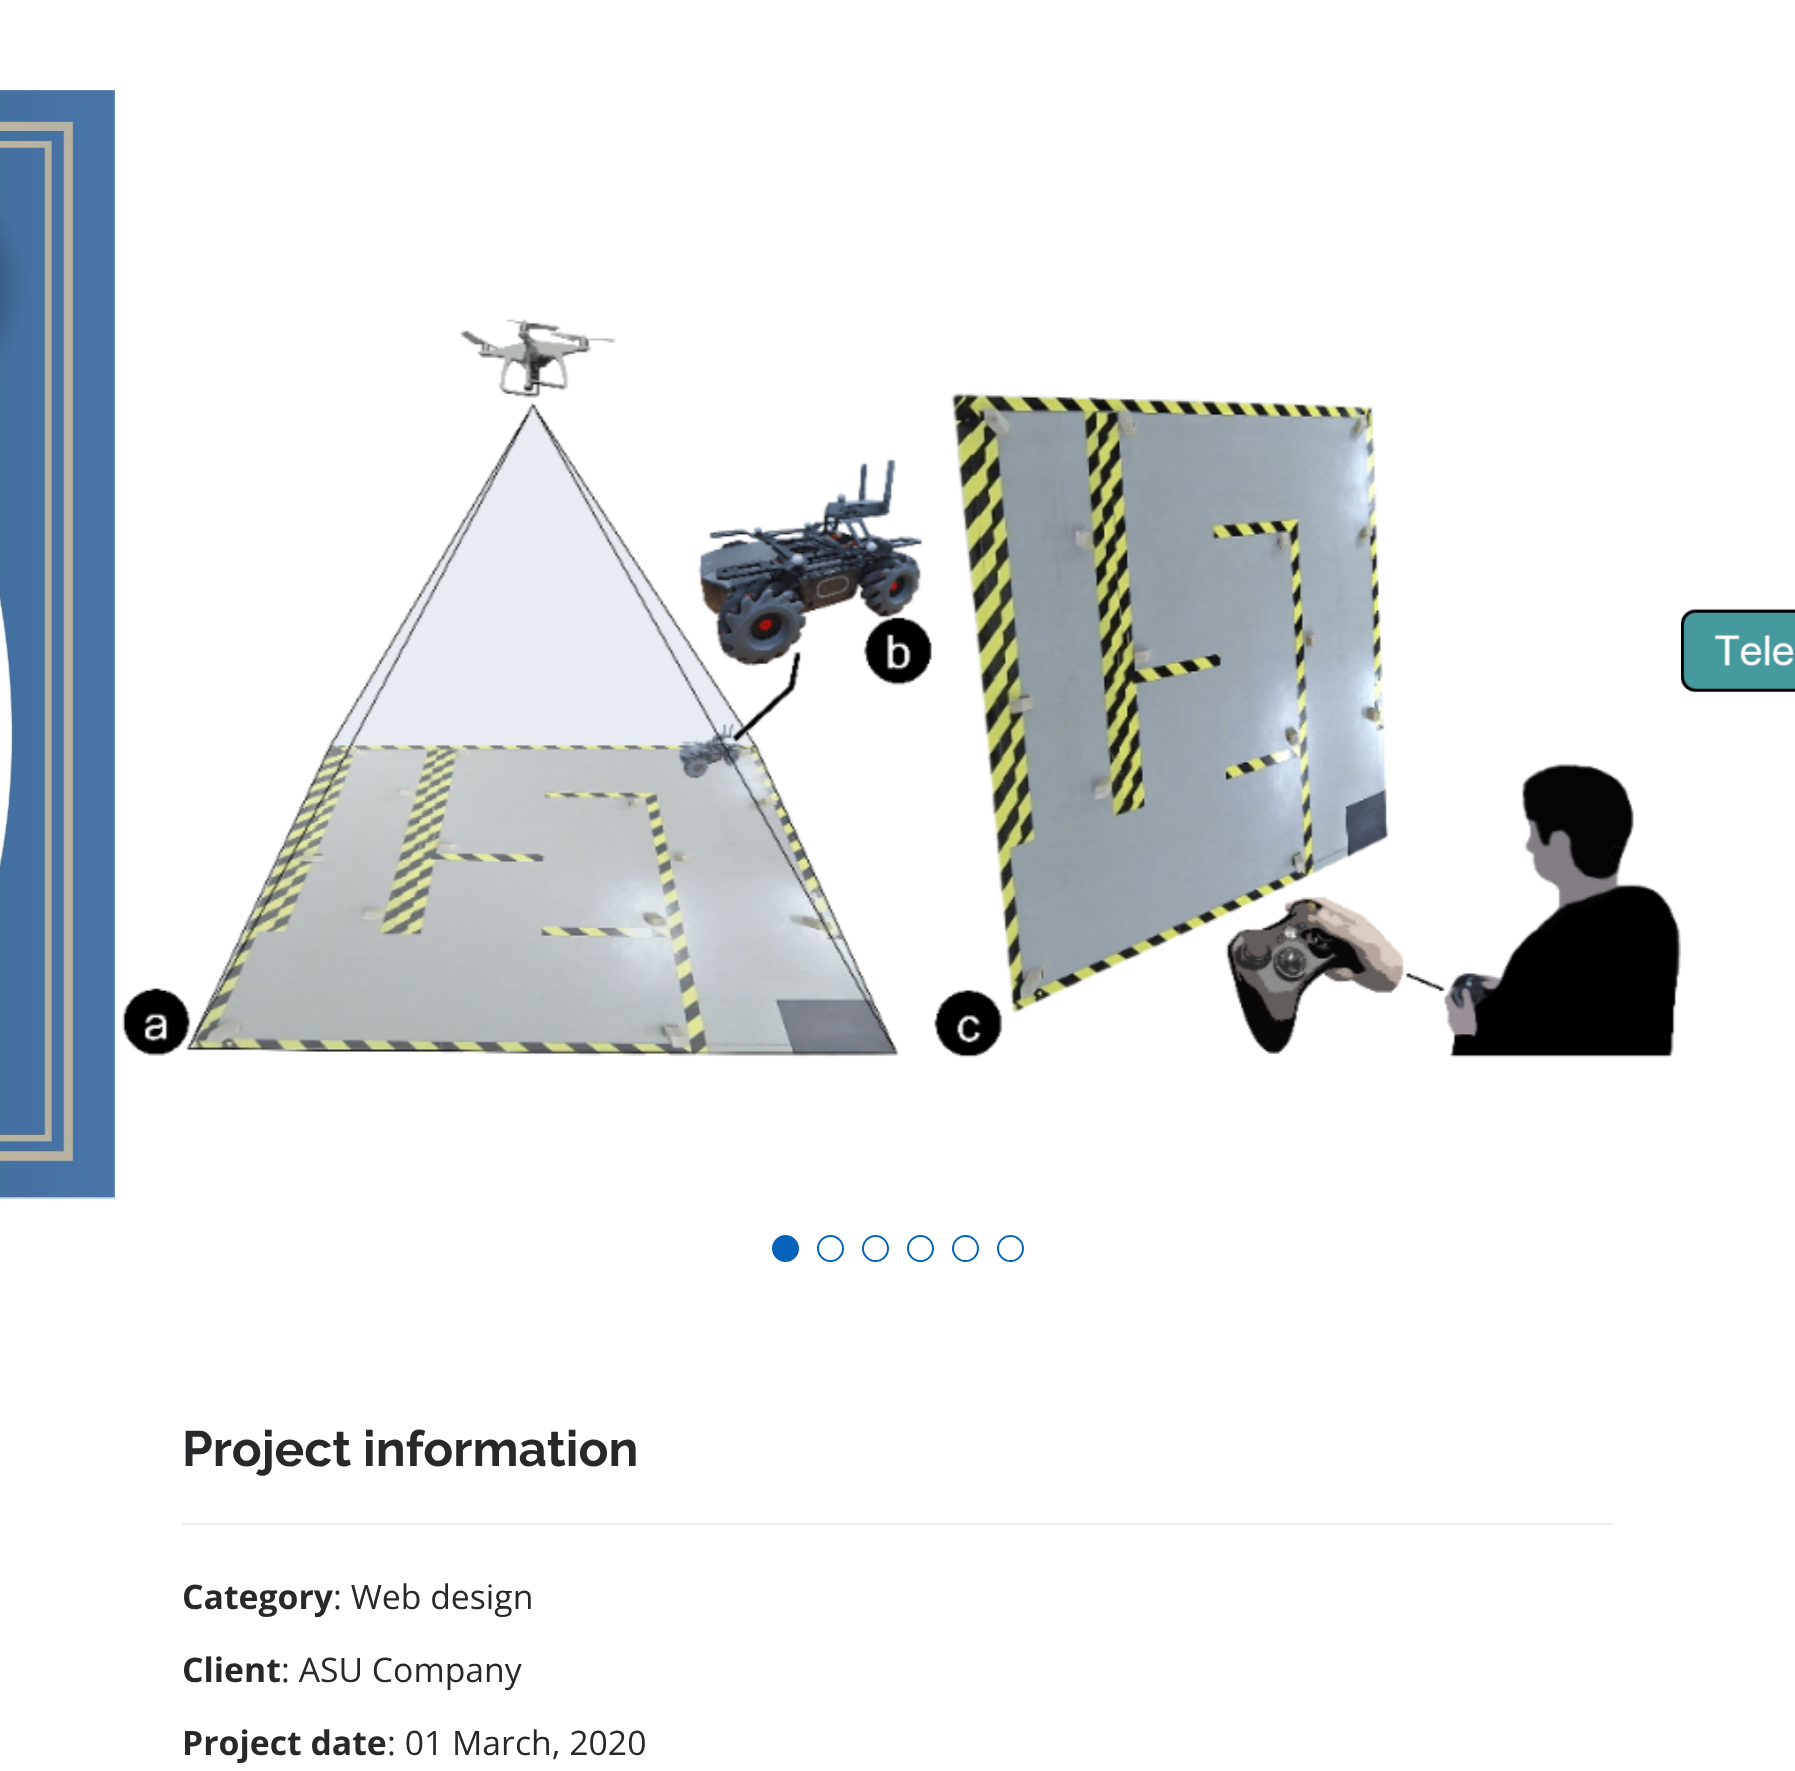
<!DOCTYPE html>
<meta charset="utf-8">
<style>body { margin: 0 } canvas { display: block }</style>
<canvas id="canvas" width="1795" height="1771"></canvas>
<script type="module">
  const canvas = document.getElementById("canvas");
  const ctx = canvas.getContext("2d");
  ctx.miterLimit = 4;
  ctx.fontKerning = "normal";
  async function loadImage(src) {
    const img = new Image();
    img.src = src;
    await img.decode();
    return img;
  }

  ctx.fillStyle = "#ffffff";
  ctx.fillRect(0, 0, 1795, 1771);
  ctx.drawImage(await loadImage("img1.png"), 0, 90, 115, 1110);
  ctx.drawImage(await loadImage("img2.png"), 122, 319, 1559, 739);
  ctx.drawImage(await loadImage("img3.png"), 1681, 608, 114, 84);
  ctx.fillStyle = "#0563bb";
  ctx.beginPath();
  ctx.arc(785.5, 1248.5, 12.5, 0, Math.PI * 2);
  ctx.fill();
  ctx.strokeStyle = "#0563bb";
  ctx.lineWidth = 2;
  ctx.stroke();
  ctx.beginPath();
  ctx.arc(830.5, 1248.5, 12.5, 0, Math.PI * 2);
  ctx.stroke();
  ctx.beginPath();
  ctx.arc(875.5, 1248.5, 12.5, 0, Math.PI * 2);
  ctx.stroke();
  ctx.beginPath();
  ctx.arc(920.5, 1248.5, 12.5, 0, Math.PI * 2);
  ctx.stroke();
  ctx.beginPath();
  ctx.arc(965.5, 1248.5, 12.5, 0, Math.PI * 2);
  ctx.stroke();
  ctx.beginPath();
  ctx.arc(1010.5, 1248.5, 12.5, 0, Math.PI * 2);
  ctx.stroke();
  ctx.fillStyle = "#eeeeee";
  ctx.fillRect(182, 1523, 1431, 2);
  ctx.font = "bold 49.5px Raleway";
  ctx.fillStyle = "#272829";
  ctx.fillText("Project information", 182, 1466);
  ctx.font = "bold 33.75px Open Sans";
  ctx.fillText("Category", 182, 1609);
  ctx.font = "33.75px Open Sans";
  ctx.fillText(": Web design", 333, 1609);
  ctx.font = "bold 33.75px Open Sans";
  ctx.fillText("Client", 182, 1682);
  ctx.font = "33.75px Open Sans";
  ctx.fillText(": ASU Company", 281, 1682);
  ctx.font = "bold 33.75px Open Sans";
  ctx.fillText("Project date", 182, 1755);
  ctx.font = "33.75px Open Sans";
  ctx.fillText(": 01 March, 2020", 387, 1755);
</script>
